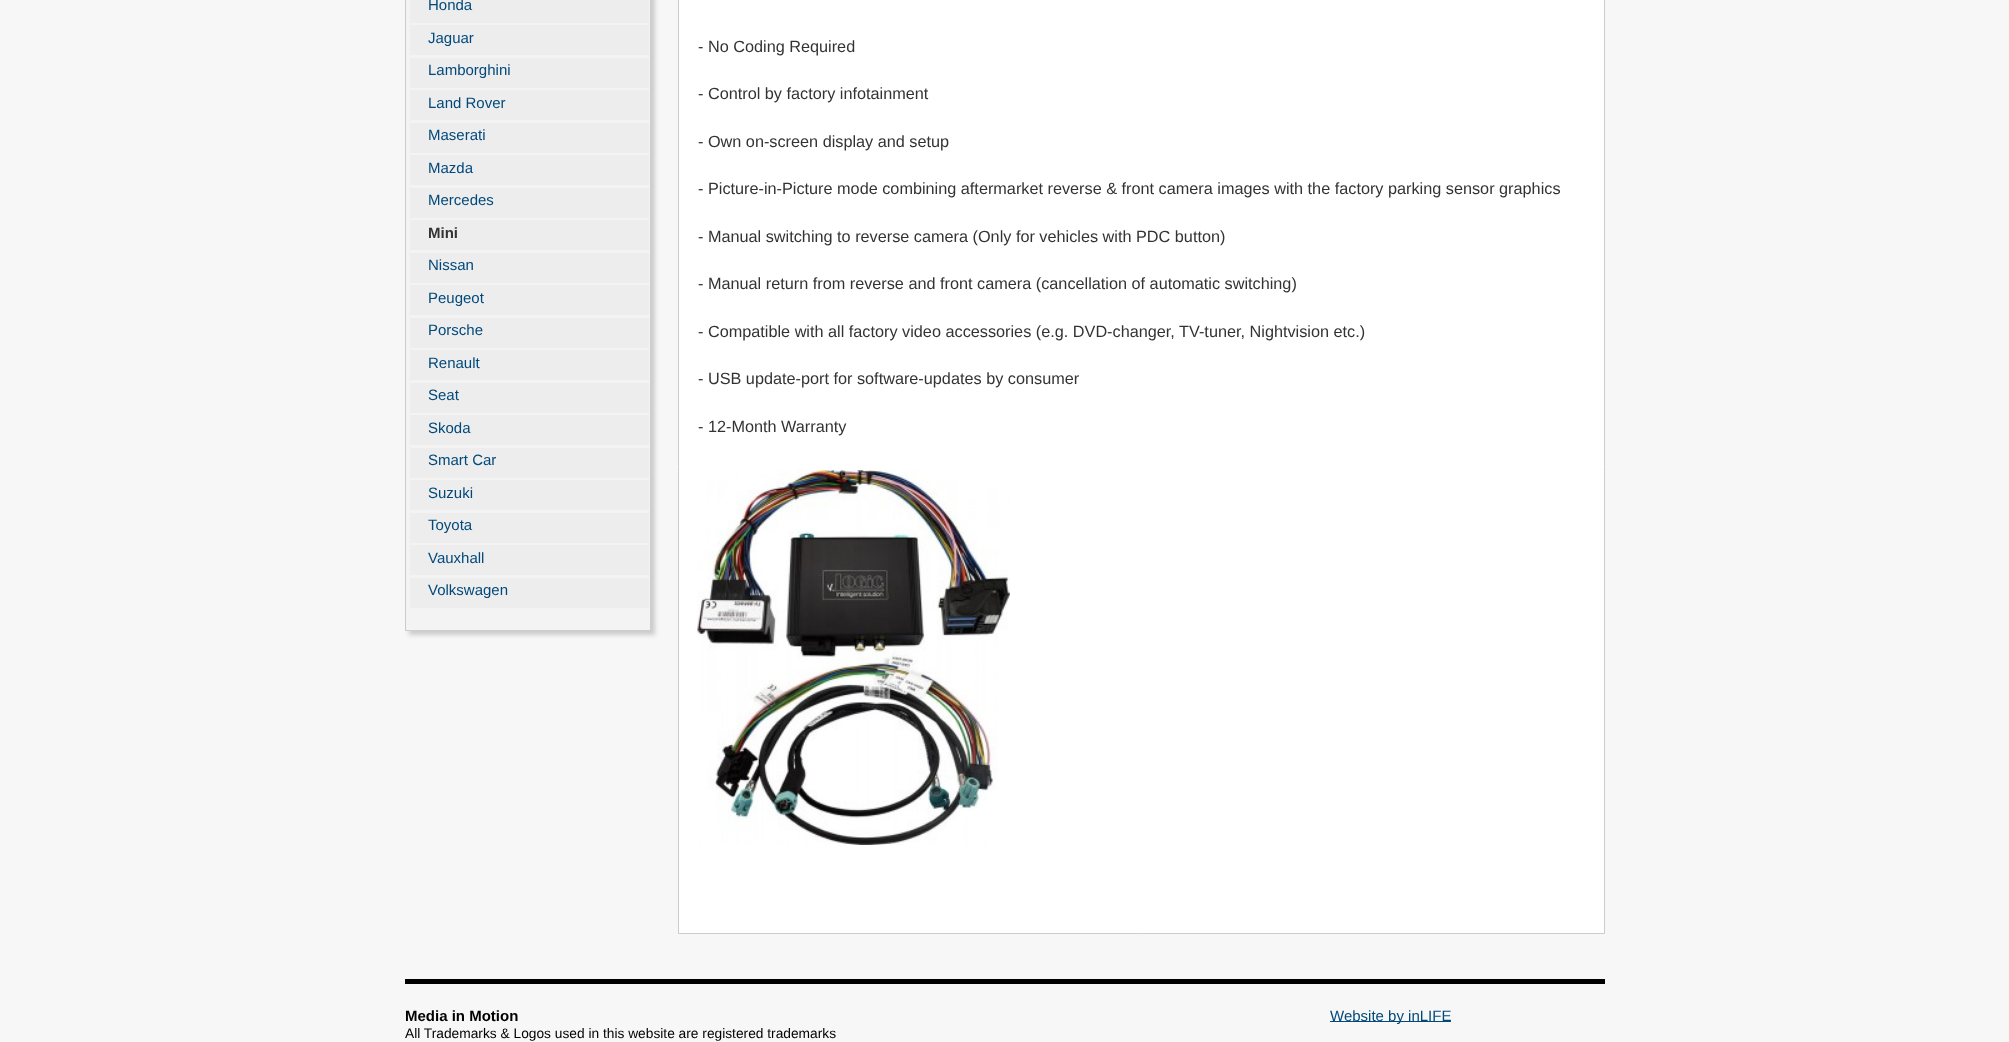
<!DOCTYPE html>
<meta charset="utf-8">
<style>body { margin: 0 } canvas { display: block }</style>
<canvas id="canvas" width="2009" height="1042"></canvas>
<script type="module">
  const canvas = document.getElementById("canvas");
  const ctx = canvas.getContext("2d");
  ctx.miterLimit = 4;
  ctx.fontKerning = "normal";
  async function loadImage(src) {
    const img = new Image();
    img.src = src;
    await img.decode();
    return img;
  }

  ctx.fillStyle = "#f7f7f7";
  ctx.fillRect(0, 0, 2009, 1042);
  ctx.fillStyle = "#cccccc";
  ctx.filter = "blur(2px)";
  ctx.beginPath();
  ctx.rect(409, -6, 246, 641);
  ctx.fill();
  ctx.filter = "none";
  ctx.fillStyle = "#f3f3f3";
  ctx.fillRect(407, 0, 243, 630);
  ctx.strokeStyle = "#cdcdcd";
  ctx.strokeRect(405.5, -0.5, 245, 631);
  ctx.fillStyle = "#ededed";
  ctx.fillRect(410, 0, 239, 23);
  ctx.font = "15px Liberation Sans";
  ctx.fillStyle = "#02497b";
  ctx.fillText("Honda", 428, 10);
  ctx.fillStyle = "#ededed";
  ctx.fillRect(410, 25, 239, 30);
  ctx.fillStyle = "#02497b";
  ctx.fillText("Jaguar", 428, 43);
  ctx.fillStyle = "#ededed";
  ctx.fillRect(410, 58, 239, 30);
  ctx.fillStyle = "#02497b";
  ctx.fillText("Lamborghini", 428, 75);
  ctx.fillStyle = "#ededed";
  ctx.fillRect(410, 90, 239, 30);
  ctx.fillStyle = "#02497b";
  ctx.fillText("Land Rover", 428, 108);
  ctx.fillStyle = "#ededed";
  ctx.fillRect(410, 123, 239, 30);
  ctx.fillStyle = "#02497b";
  ctx.fillText("Maserati", 428, 140);
  ctx.fillStyle = "#ededed";
  ctx.fillRect(410, 155, 239, 30);
  ctx.fillStyle = "#02497b";
  ctx.fillText("Mazda", 428, 173);
  ctx.fillStyle = "#ededed";
  ctx.fillRect(410, 188, 239, 30);
  ctx.fillStyle = "#02497b";
  ctx.fillText("Mercedes", 428, 205);
  ctx.fillStyle = "#ededed";
  ctx.fillRect(410, 220, 239, 30);
  ctx.font = "bold 15px Liberation Sans";
  ctx.fillStyle = "#333333";
  ctx.fillText("Mini", 428, 238);
  ctx.fillStyle = "#ededed";
  ctx.fillRect(410, 253, 239, 30);
  ctx.font = "15px Liberation Sans";
  ctx.fillStyle = "#02497b";
  ctx.fillText("Nissan", 428, 270);
  ctx.fillStyle = "#ededed";
  ctx.fillRect(410, 285, 239, 30);
  ctx.fillStyle = "#02497b";
  ctx.fillText("Peugeot", 428, 303);
  ctx.fillStyle = "#ededed";
  ctx.fillRect(410, 318, 239, 30);
  ctx.fillStyle = "#02497b";
  ctx.fillText("Porsche", 428, 335);
  ctx.fillStyle = "#ededed";
  ctx.fillRect(410, 350, 239, 30);
  ctx.fillStyle = "#02497b";
  ctx.fillText("Renault", 428, 368);
  ctx.fillStyle = "#ededed";
  ctx.fillRect(410, 383, 239, 30);
  ctx.fillStyle = "#02497b";
  ctx.fillText("Seat", 428, 400);
  ctx.fillStyle = "#ededed";
  ctx.fillRect(410, 415, 239, 30);
  ctx.fillStyle = "#02497b";
  ctx.fillText("Skoda", 428, 433);
  ctx.fillStyle = "#ededed";
  ctx.fillRect(410, 448, 239, 30);
  ctx.fillStyle = "#02497b";
  ctx.fillText("Smart Car", 428, 465);
  ctx.fillStyle = "#ededed";
  ctx.fillRect(410, 480, 239, 30);
  ctx.fillStyle = "#02497b";
  ctx.fillText("Suzuki", 428, 498);
  ctx.fillStyle = "#ededed";
  ctx.fillRect(410, 513, 239, 30);
  ctx.fillStyle = "#02497b";
  ctx.fillText("Toyota", 428, 530);
  ctx.fillStyle = "#ededed";
  ctx.fillRect(410, 545, 239, 30);
  ctx.fillStyle = "#02497b";
  ctx.fillText("Vauxhall", 428, 563);
  ctx.fillStyle = "#ededed";
  ctx.fillRect(410, 578, 239, 30);
  ctx.fillStyle = "#02497b";
  ctx.fillText("Volkswagen", 428, 595);
  ctx.fillStyle = "#ffffff";
  ctx.beginPath();
  ctx.rect(678.5, -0.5, 926, 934);
  ctx.fill();
  ctx.strokeStyle = "#cccccc";
  ctx.stroke();
  ctx.font = "16.25px Liberation Sans";
  ctx.fillStyle = "#333333";
  ctx.fillText("- No Coding Required", 698, 52);
  ctx.fillText("- Control by factory infotainment", 698, 99);
  ctx.fillText("- Own on-screen display and setup", 698, 147);
  ctx.fillText("- Picture-in-Picture mode combining aftermarket reverse & front camera images with the factory parking sensor graphics", 698, 194);
  ctx.fillText("- Manual switching to reverse camera (Only for vehicles with PDC button)", 698, 242);
  ctx.fillText("- Manual return from reverse and front camera (cancellation of automatic switching)", 698, 289);
  ctx.fillText("- Compatible with all factory video accessories (e.g. DVD-changer, TV-tuner, Nightvision etc.)", 698, 337);
  ctx.fillText("- USB update-port for software-updates by consumer", 698, 384);
  ctx.fillText("- 12-Month Warranty", 698, 432);
  ctx.drawImage(await loadImage("img1.png"), 697, 470, 313, 375);
  ctx.fillStyle = "#000000";
  ctx.fillRect(405, 979, 1200, 5);
  ctx.font = "bold 15px Liberation Sans";
  ctx.fillText("Media in Motion", 405, 1021);
  ctx.font = "13.75px Liberation Sans";
  ctx.fillText("All Trademarks & Logos used in this website are registered trademarks", 405, 1038);
  ctx.fillStyle = "#02497b";
  ctx.fillRect(1330, 1021, 121, 1);
  ctx.font = "15px Liberation Sans";
  ctx.fillText("Website by inLIFE", 1330, 1021);
</script>
